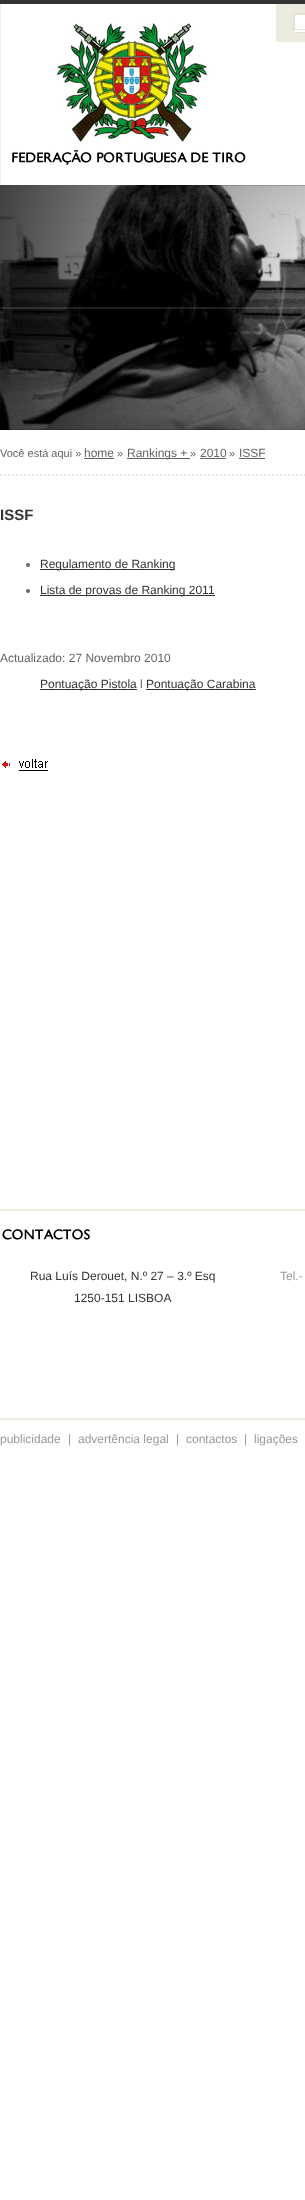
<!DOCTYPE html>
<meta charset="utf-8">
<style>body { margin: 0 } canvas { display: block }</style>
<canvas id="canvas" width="305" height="2200"></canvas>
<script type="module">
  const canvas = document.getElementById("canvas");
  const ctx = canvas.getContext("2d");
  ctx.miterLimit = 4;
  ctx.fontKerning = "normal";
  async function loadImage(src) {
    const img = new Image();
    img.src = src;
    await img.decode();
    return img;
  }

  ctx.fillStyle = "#ffffff";
  ctx.fillRect(0, 0, 305, 2200);
  ctx.drawImage(await loadImage("img1.png"), 0, 0, 305, 185);
  ctx.fillStyle = "#f2f1e9";
  ctx.fillRect(0, 4, 1, 181);
  ctx.drawImage(await loadImage("img2.png"), 12, 23, 234, 142);
  ctx.drawImage(await loadImage("img3.png"), 276, 4, 29, 38);
  ctx.strokeStyle = "#e4e2d3";
  ctx.strokeRect(294.5, 14.5, 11, 15);
  ctx.drawImage(await loadImage("img4.png"), 0, 185, 305, 245);
  ctx.drawImage(await loadImage("img5.png"), 0, 185, 305, 245);
  ctx.font = "11px Liberation Sans";
  ctx.fillStyle = "#636565";
  ctx.fillText("Você está aqui »", 0, 457);
  ctx.font = "12px Liberation Sans";
  ctx.fillText("home", 84, 457);
  ctx.fillRect(84, 458, 30, 1);
  ctx.font = "11px Liberation Sans";
  ctx.fillText("»", 117, 457);
  ctx.fillRect(127, 458, 63, 1);
  ctx.font = "12px Liberation Sans";
  ctx.fillText("Rankings +", 127, 457);
  ctx.font = "11px Liberation Sans";
  ctx.fillText("»", 190, 457);
  ctx.font = "12px Liberation Sans";
  ctx.fillText("2010", 200, 457);
  ctx.fillRect(200, 458, 26, 1);
  ctx.font = "11px Liberation Sans";
  ctx.fillText("»", 229, 457);
  ctx.font = "12px Liberation Sans";
  ctx.fillText("ISSF", 239, 457);
  ctx.fillRect(239, 458, 26, 1);
  ctx.drawImage(await loadImage("img6.png"), 0, 474, 305, 1);
  ctx.beginPath();
  ctx.moveTo(0, 475.5);
  ctx.lineTo(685, 475.5);
  ctx.strokeStyle = "#ecebe0";
  ctx.setLineDash([1, 1]);
  ctx.stroke();
  ctx.font = "bold 15px Liberation Sans";
  ctx.fillStyle = "#333333";
  ctx.fillText("ISSF", 0, 520);
  ctx.fillStyle = "#676767";
  ctx.beginPath();
  ctx.arc(28, 565, 2, 0, Math.PI * 2);
  ctx.fill();
  ctx.fillStyle = "#333333";
  ctx.fillRect(40, 569, 135, 1);
  ctx.font = "12px Liberation Sans";
  ctx.fillText("Regulamento de Ranking", 40, 568);
  ctx.fillStyle = "#676767";
  ctx.beginPath();
  ctx.arc(28, 591, 2, 0, Math.PI * 2);
  ctx.fill();
  ctx.fillStyle = "#333333";
  ctx.fillRect(40, 595, 175, 1);
  ctx.fillText("Lista de provas de Ranking 2011", 40, 594);
  ctx.fillStyle = "#636565";
  ctx.fillText("Actualizado: 27 Novembro 2010", 0, 662);
  ctx.fillStyle = "#333333";
  ctx.fillRect(40, 689, 97, 1);
  ctx.fillText("Pontuação Pistola", 40, 688);
  ctx.fillStyle = "#636565";
  ctx.fillText("l", 140, 688);
  ctx.fillStyle = "#333333";
  ctx.fillRect(146, 689, 110, 1);
  ctx.fillText("Pontuação Carabina", 146, 688);
  ctx.drawImage(await loadImage("img7.png"), 2, 759, 46, 12);
  ctx.fillStyle = "#ecebe0";
  ctx.fillRect(0, 1209, 305, 2);
  ctx.drawImage(await loadImage("img8.png"), 2, 1229, 88, 11);
  ctx.fillStyle = "#333333";
  ctx.fillText("Rua Luís Derouet, N.º 27 – 3.º Esq", 30, 1280);
  ctx.fillText("1250-151 LISBOA", 74, 1302);
  ctx.fillStyle = "#999999";
  ctx.fillText("Tel.-", 280, 1280);
  ctx.fillStyle = "#ecebe0";
  ctx.fillRect(0, 1418, 305, 2);
  ctx.fillStyle = "#999999";
  ctx.fillText("publicidade", 0, 1443);
  ctx.fillText("|", 68, 1443);
  ctx.fillText("advertência legal", 78, 1443);
  ctx.fillText("|", 176, 1443);
  ctx.fillText("contactos", 186, 1443);
  ctx.fillText("|", 244, 1443);
  ctx.fillText("ligações", 254, 1443);
</script>
